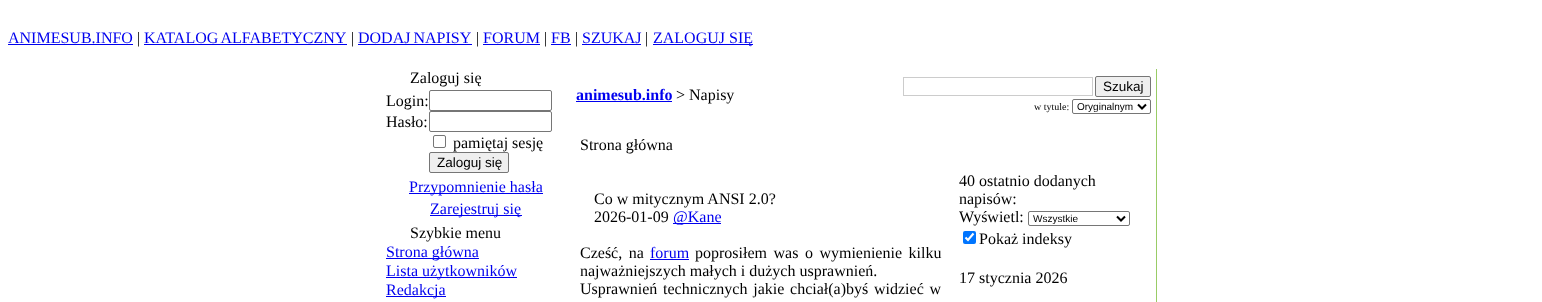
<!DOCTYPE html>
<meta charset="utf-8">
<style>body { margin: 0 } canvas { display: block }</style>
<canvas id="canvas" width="1542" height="302"></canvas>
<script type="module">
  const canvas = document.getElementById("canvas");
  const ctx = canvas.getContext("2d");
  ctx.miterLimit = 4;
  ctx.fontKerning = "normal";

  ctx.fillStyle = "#ffffff";
  ctx.fillRect(0, 0, 1542, 302);
  ctx.font = "16px Liberation Serif";
  ctx.fillStyle = "#0000ee";
  ctx.fillText("ANIMESUB.INFO", 8, 43);
  ctx.fillRect(8, 44, 125, 1);
  ctx.fillStyle = "#000000";
  ctx.fillText("|", 137, 43);
  ctx.wordSpacing = "-1px";
  ctx.fillStyle = "#0000ee";
  ctx.fillText("KATALOG ALFABETYCZNY", 144, 43);
  ctx.fillRect(144, 44, 203, 1);
  ctx.wordSpacing = "0px";
  ctx.fillStyle = "#000000";
  ctx.fillText("|", 351, 43);
  ctx.wordSpacing = "-1px";
  ctx.fillStyle = "#0000ee";
  ctx.fillText("DODAJ NAPISY", 358, 43);
  ctx.fillRect(358, 44, 114, 1);
  ctx.wordSpacing = "0px";
  ctx.fillStyle = "#000000";
  ctx.fillText("|", 476, 43);
  ctx.fillStyle = "#0000ee";
  ctx.fillText("FORUM", 483, 43);
  ctx.fillRect(483, 44, 57, 1);
  ctx.fillStyle = "#000000";
  ctx.fillText("|", 544, 43);
  ctx.fillStyle = "#0000ee";
  ctx.fillText("FB", 551, 43);
  ctx.fillRect(551, 44, 20, 1);
  ctx.fillStyle = "#000000";
  ctx.fillText("|", 575, 43);
  ctx.fillStyle = "#0000ee";
  ctx.fillText("SZUKAJ", 582, 43);
  ctx.fillRect(582, 44, 59, 1);
  ctx.fillStyle = "#000000";
  ctx.fillText("|", 645, 43);
  ctx.fillStyle = "#0000ee";
  ctx.fillRect(653, 44, 100, 1);
  ctx.fillText("ZALOGUJ SIĘ", 653, 43);
  ctx.fillStyle = "#000000";
  ctx.fillText("Zaloguj się", 410, 83);
  ctx.fillText("Login:", 386, 106);
  ctx.beginPath();
  ctx.roundRect(429.5, 90.5, 122, 20, 1.5);
  ctx.strokeStyle = "#767676";
  ctx.stroke();
  ctx.fillText("Hasło:", 386, 127);
  ctx.beginPath();
  ctx.roundRect(429.5, 111.5, 122, 20, 1.5);
  ctx.stroke();
  ctx.beginPath();
  ctx.roundRect(433.5, 135.5, 12, 12, 1.5);
  ctx.stroke();
  ctx.fillText("pamiętaj sesję", 453, 148);
  ctx.fillStyle = "#efefef";
  ctx.beginPath();
  ctx.roundRect(429.5, 152.5, 79, 20, 1.5);
  ctx.fill();
  ctx.stroke();
  ctx.font = "13.5px Liberation Sans";
  ctx.fillStyle = "#000000";
  ctx.fillText("Zaloguj się", 437, 167);
  ctx.fillStyle = "#0000ee";
  ctx.fillRect(409, 193, 134, 1);
  ctx.font = "16px Liberation Serif";
  ctx.fillText("Przypomnienie hasła", 409, 192);
  ctx.fillRect(430, 215, 92, 1);
  ctx.fillText("Zarejestruj się", 430, 214);
  ctx.fillStyle = "#000000";
  ctx.fillText("Szybkie menu", 410, 238);
  ctx.fillStyle = "#0000ee";
  ctx.fillRect(386, 258, 93, 1);
  ctx.fillText("Strona główna", 386, 257);
  ctx.fillRect(386, 277, 131, 1);
  ctx.fillText("Lista użytkowników", 386, 276);
  ctx.fillRect(386, 296, 60, 1);
  ctx.fillText("Redakcja", 386, 295);
  ctx.font = "bold 16px Liberation Serif";
  ctx.fillText("animesub.info", 576, 100);
  ctx.fillRect(576, 101, 96, 1);
  ctx.font = "16px Liberation Serif";
  ctx.fillStyle = "#000000";
  ctx.fillText("> Napisy", 676, 100);
  ctx.strokeStyle = "#cccccc";
  ctx.strokeRect(903.5, 77.5, 189, 18);
  ctx.fillStyle = "#efefef";
  ctx.beginPath();
  ctx.roundRect(1095.5, 76.5, 55, 20, 1.5);
  ctx.fill();
  ctx.strokeStyle = "#767676";
  ctx.stroke();
  ctx.font = "13.5px Liberation Sans";
  ctx.fillStyle = "#000000";
  ctx.fillText("Szukaj", 1103, 91);
  ctx.font = "10px Liberation Serif";
  ctx.fillText("w tytule:", 1034, 110);
  ctx.beginPath();
  ctx.roundRect(1072.5, 99.5, 78, 14, 1.5);
  ctx.stroke();
  ctx.beginPath();
  ctx.moveTo(1138, 104.5);
  ctx.lineTo(1142, 108.5);
  ctx.lineTo(1146, 104.5);
  ctx.strokeStyle = "#000000";
  ctx.lineWidth = 2;
  ctx.stroke();
  ctx.font = "10px Liberation Sans";
  ctx.fillText("Oryginalnym", 1077, 110);
  ctx.font = "16px Liberation Serif";
  ctx.fillText("Strona główna", 580, 150);
  ctx.fillText("Co w mitycznym ANSI 2.0?", 594, 204);
  ctx.fillText("2026-01-09", 594, 222);
  ctx.fillStyle = "#0000ee";
  ctx.fillRect(673, 223, 48, 1);
  ctx.fillText("@Kane", 673, 222);
  ctx.wordSpacing = "2.5px";
  ctx.fillStyle = "#000000";
  ctx.fillText("Cześć, na", 580, 258);
  ctx.wordSpacing = "0px";
  ctx.fillStyle = "#0000ee";
  ctx.fillText("forum", 650, 258);
  ctx.fillRect(650, 259, 39, 1);
  ctx.wordSpacing = "2.5px";
  ctx.fillStyle = "#000000";
  ctx.fillText("poprosiłem was o wymienienie kilku", 695, 258);
  ctx.wordSpacing = "0px";
  ctx.fillText("najważniejszych małych i dużych usprawnień.", 580, 276);
  ctx.wordSpacing = "1.75px";
  ctx.fillText("Usprawnień technicznych jakie chciał(a)byś widzieć w", 580, 294);
  ctx.wordSpacing = "0px";
  ctx.fillText("40 ostatnio dodanych", 959, 186);
  ctx.fillText("napisów:", 959, 204);
  ctx.fillText("Wyświetl:", 959, 222);
  ctx.beginPath();
  ctx.roundRect(1028.5, 211.5, 101, 14, 1.5);
  ctx.strokeStyle = "#767676";
  ctx.lineWidth = 1;
  ctx.stroke();
  ctx.beginPath();
  ctx.moveTo(1117, 216.5);
  ctx.lineTo(1121, 220.5);
  ctx.lineTo(1125, 216.5);
  ctx.strokeStyle = "#000000";
  ctx.lineWidth = 2;
  ctx.stroke();
  ctx.font = "10px Liberation Sans";
  ctx.fillText("Wszystkie", 1033, 222);
  ctx.fillStyle = "#0075ff";
  ctx.beginPath();
  ctx.roundRect(963, 231, 13, 13, 2);
  ctx.fill();
  ctx.beginPath();
  ctx.moveTo(965.5, 237.5);
  ctx.lineTo(968, 240);
  ctx.lineTo(973.5, 233.5);
  ctx.strokeStyle = "#ffffff";
  ctx.lineWidth = 2.1;
  ctx.stroke();
  ctx.font = "16px Liberation Serif";
  ctx.fillStyle = "#000000";
  ctx.fillText("Pokaż indeksy", 979, 244);
  ctx.fillText("17 stycznia 2026", 959, 283);
  ctx.fillStyle = "#99cc66";
  ctx.fillRect(1156, 69, 1, 233);
</script>
